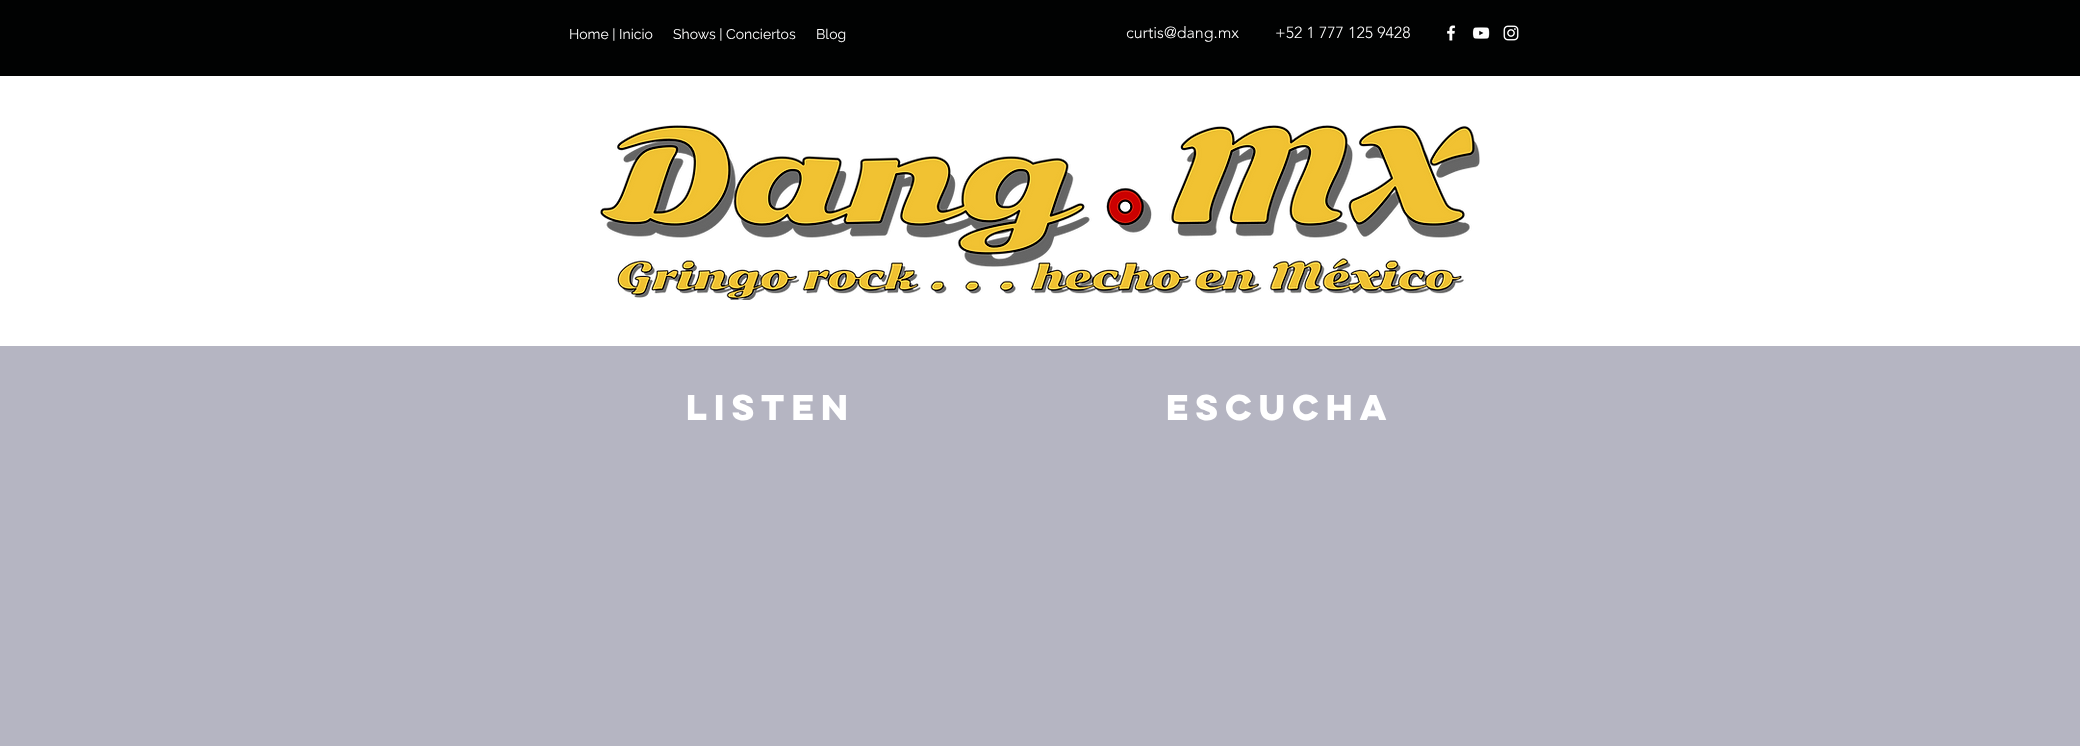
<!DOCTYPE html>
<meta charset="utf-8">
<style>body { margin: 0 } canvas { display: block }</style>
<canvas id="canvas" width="2080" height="746"></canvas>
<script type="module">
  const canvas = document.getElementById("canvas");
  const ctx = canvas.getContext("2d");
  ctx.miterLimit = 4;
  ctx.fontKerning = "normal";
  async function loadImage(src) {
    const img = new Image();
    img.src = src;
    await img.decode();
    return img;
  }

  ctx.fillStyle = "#ffffff";
  ctx.fillRect(0, 0, 2080, 746);
  ctx.fillStyle = "#010202";
  ctx.fillRect(0, 0, 2080, 76);
  ctx.font = "14px Raleway";
  ctx.fillStyle = "#ffffff";
  ctx.fillText("Home | Inicio", 569, 39);
  ctx.fillText("Shows | Conciertos", 673, 39);
  ctx.fillText("Blog", 816, 39);
  ctx.font = "300 16px 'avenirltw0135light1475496'";
  ctx.fillText("curtis@dang.mx", 1126, 38);
  ctx.fillText("+52 1 777 125 9428", 1275, 38);
  ctx.drawImage(await loadImage("img1.png"), 1447, 25, 9, 16);
  ctx.drawImage(await loadImage("img2.png"), 1472, 27, 18, 12);
  ctx.drawImage(await loadImage("img3.png"), 1503, 25, 16, 16);
  ctx.drawImage(await loadImage("img4.png"), 600, 125, 880, 175);
  ctx.fillStyle = "#b5b5c2";
  ctx.fillRect(0, 346, 2080, 400);
  ctx.font = "bold 32px 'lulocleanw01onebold'";
  ctx.fillStyle = "#ffffff";
  ctx.fillText("LISTEN                   ESCUCHA", 686, 420);
</script>
